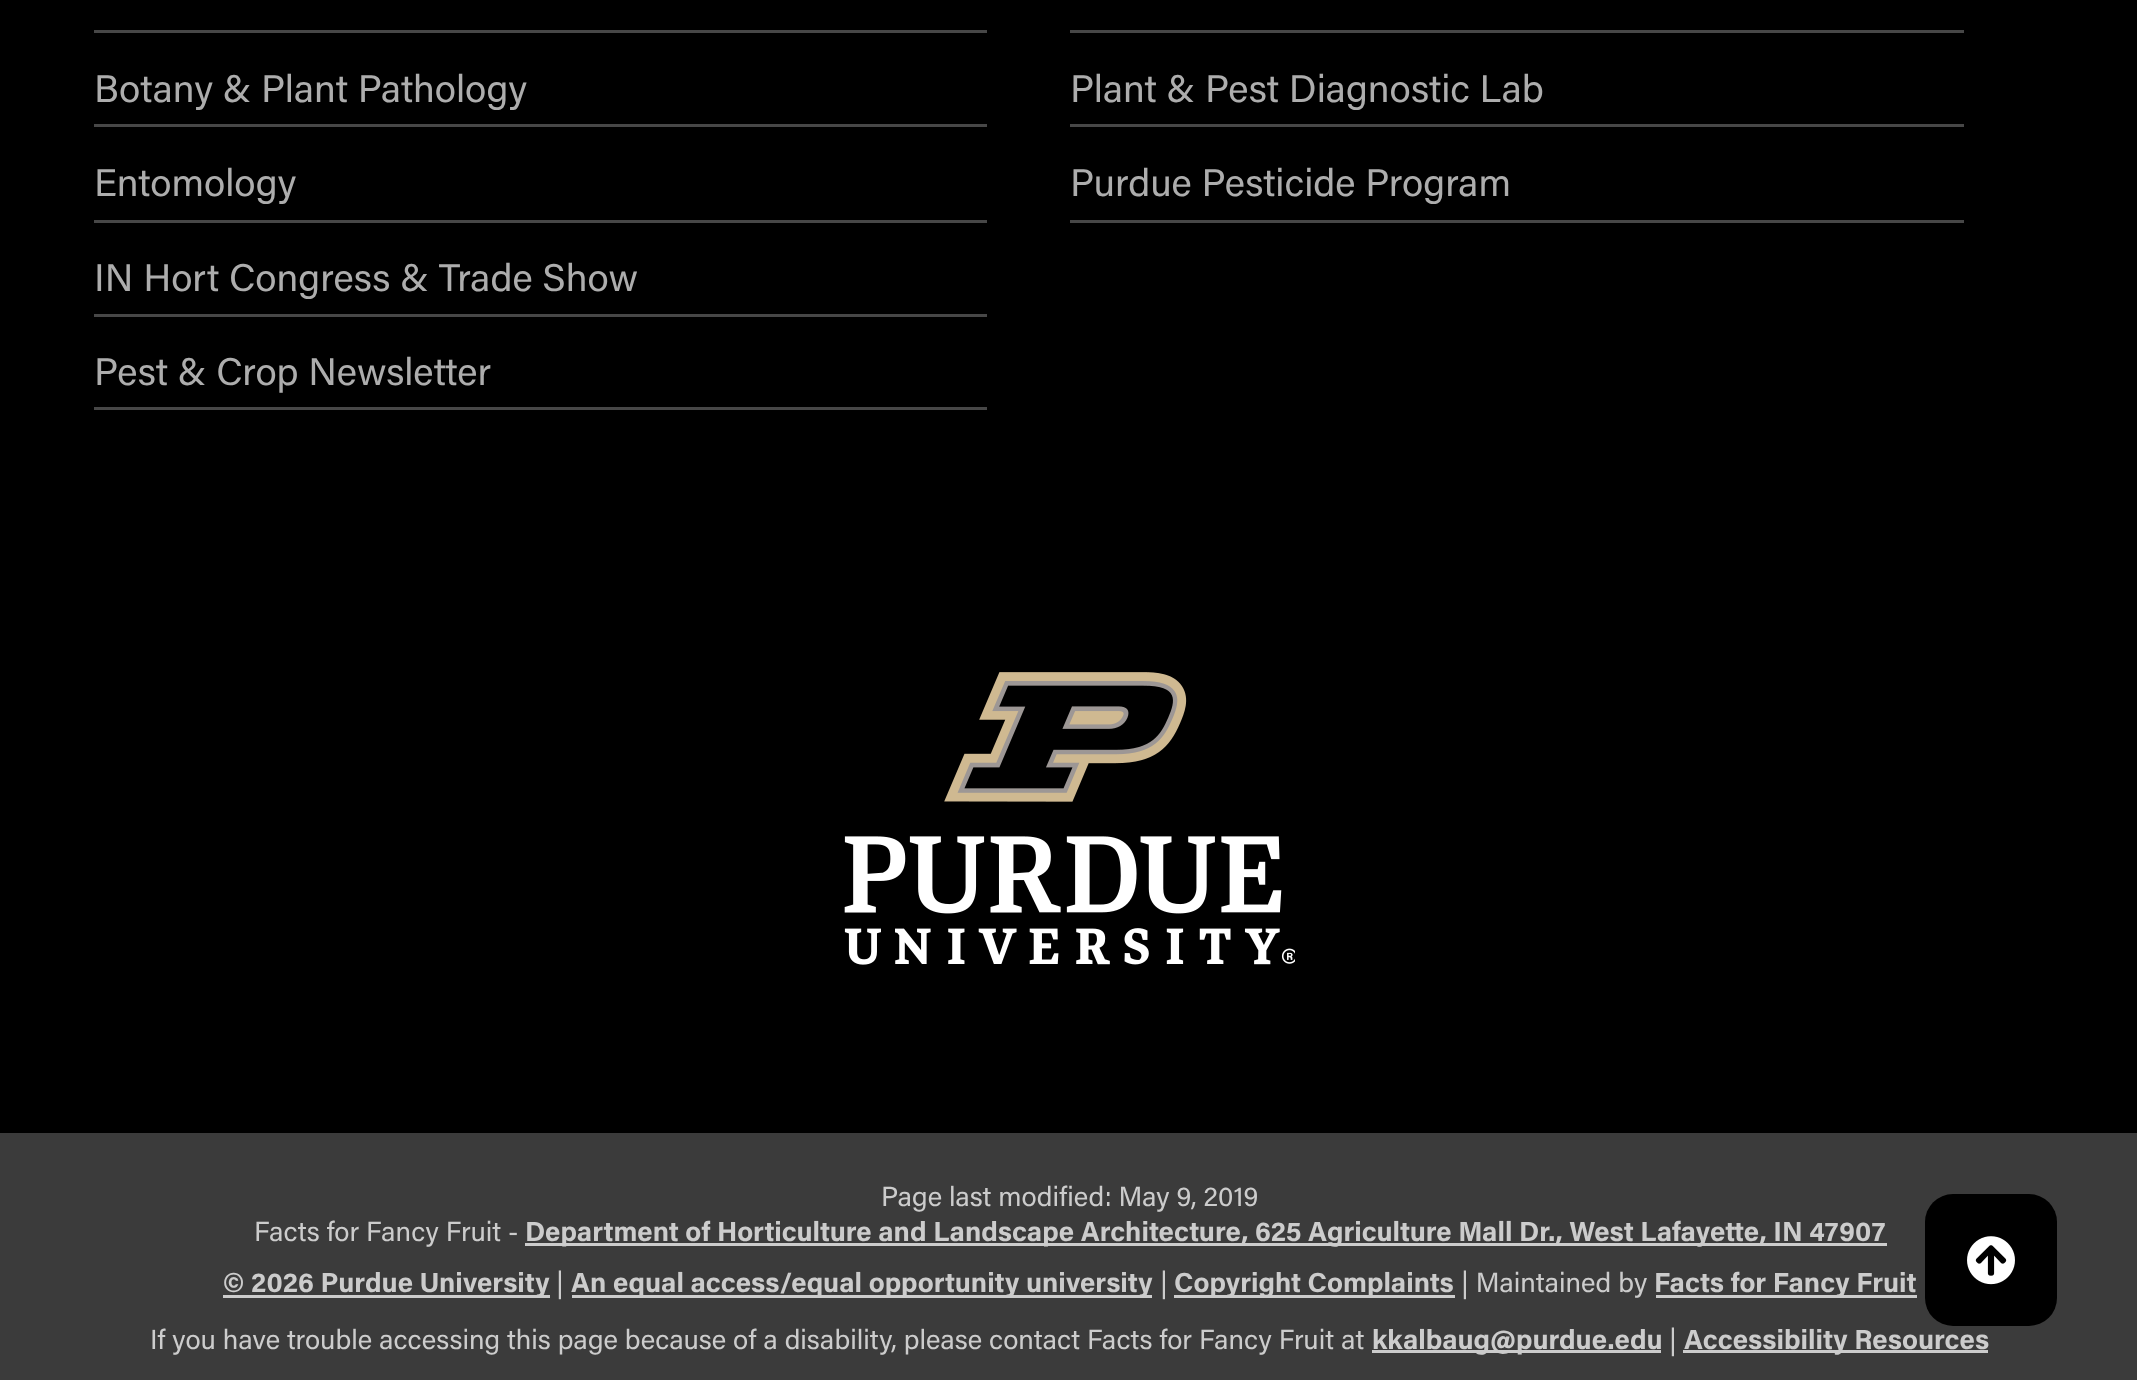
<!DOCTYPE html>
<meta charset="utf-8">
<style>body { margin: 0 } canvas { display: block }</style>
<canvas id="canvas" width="2137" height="1380"></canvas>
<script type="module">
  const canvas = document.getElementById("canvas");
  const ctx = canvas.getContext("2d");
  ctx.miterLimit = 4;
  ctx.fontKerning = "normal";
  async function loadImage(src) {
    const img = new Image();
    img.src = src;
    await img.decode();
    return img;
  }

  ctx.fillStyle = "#000000";
  ctx.fillRect(0, 0, 2137, 1380);
  ctx.fillStyle = "#474747";
  ctx.fillRect(94, 30, 893, 3);
  ctx.fillRect(94, 124, 893, 3);
  ctx.font = "38.5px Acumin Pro";
  ctx.fillStyle = "#adadad";
  ctx.fillText("Botany & Plant Pathology", 94, 102);
  ctx.fillStyle = "#474747";
  ctx.fillRect(94, 220, 893, 3);
  ctx.fillStyle = "#adadad";
  ctx.fillText("Entomology", 94, 196);
  ctx.fillStyle = "#474747";
  ctx.fillRect(94, 314, 893, 3);
  ctx.fillStyle = "#adadad";
  ctx.fillText("IN Hort Congress & Trade Show", 94, 291);
  ctx.fillStyle = "#474747";
  ctx.fillRect(94, 407, 893, 3);
  ctx.fillStyle = "#adadad";
  ctx.fillText("Pest & Crop Newsletter", 94, 385);
  ctx.fillStyle = "#474747";
  ctx.fillRect(1070, 30, 894, 3);
  ctx.fillRect(1070, 124, 894, 3);
  ctx.fillStyle = "#adadad";
  ctx.fillText("Plant & Pest Diagnostic Lab", 1070, 102);
  ctx.fillStyle = "#474747";
  ctx.fillRect(1070, 220, 894, 3);
  ctx.fillStyle = "#adadad";
  ctx.fillText("Purdue Pesticide Program", 1070, 196);
  ctx.drawImage(await loadImage("img1.png"), 844, 672, 451, 293);
  ctx.fillStyle = "#3b3b3b";
  ctx.fillRect(0, 1133, 2137, 247);
  ctx.font = "27.5px Acumin Pro";
  ctx.fillStyle = "#cccccc";
  ctx.fillText("Page last modified: May 9, 2019", 881, 1206);
  ctx.fillText("Facts for Fancy Fruit -", 254, 1241);
  ctx.fillRect(525, 1243, 1362, 3);
  ctx.font = "bold 27.5px Acumin Pro";
  ctx.fillText("Department of Horticulture and Landscape Architecture, 625 Agriculture Mall Dr., West Lafayette, IN 47907", 525, 1241);
  ctx.fillRect(223, 1295, 327, 3);
  ctx.fillText("© 2026 Purdue University", 223, 1292);
  ctx.font = "27.5px Acumin Pro";
  ctx.fillText("|", 556, 1292);
  ctx.fillRect(572, 1295, 580, 3);
  ctx.font = "bold 27.5px Acumin Pro";
  ctx.fillText("An equal access/equal opportunity university", 571, 1292);
  ctx.font = "27.5px Acumin Pro";
  ctx.fillText("|", 1160, 1292);
  ctx.fillRect(1174, 1295, 281, 3);
  ctx.font = "bold 27.5px Acumin Pro";
  ctx.fillText("Copyright Complaints", 1174, 1292);
  ctx.font = "27.5px Acumin Pro";
  ctx.fillText("| Maintained by", 1461, 1292);
  ctx.fillRect(1656, 1295, 261, 3);
  ctx.font = "bold 27.5px Acumin Pro";
  ctx.fillText("Facts for Fancy Fruit", 1654, 1292);
  ctx.font = "27.5px Acumin Pro";
  ctx.fillText("If you have trouble accessing this page because of a disability, please contact Facts for Fancy Fruit at", 150, 1349);
  ctx.fillRect(1372, 1350, 289, 3);
  ctx.font = "bold 27.5px Acumin Pro";
  ctx.fillText("kkalbaug@purdue.edu", 1372, 1349);
  ctx.font = "27.5px Acumin Pro";
  ctx.fillText("|", 1669, 1349);
  ctx.fillRect(1683, 1350, 305, 3);
  ctx.font = "bold 27.5px Acumin Pro";
  ctx.fillText("Accessibility Resources", 1684, 1349);
  ctx.fillStyle = "#000000";
  ctx.beginPath();
  ctx.roundRect(1925, 1194, 132, 132, 28);
  ctx.fill();
  ctx.drawImage(await loadImage("img2.png"), 1967, 1236, 48, 49);
</script>
